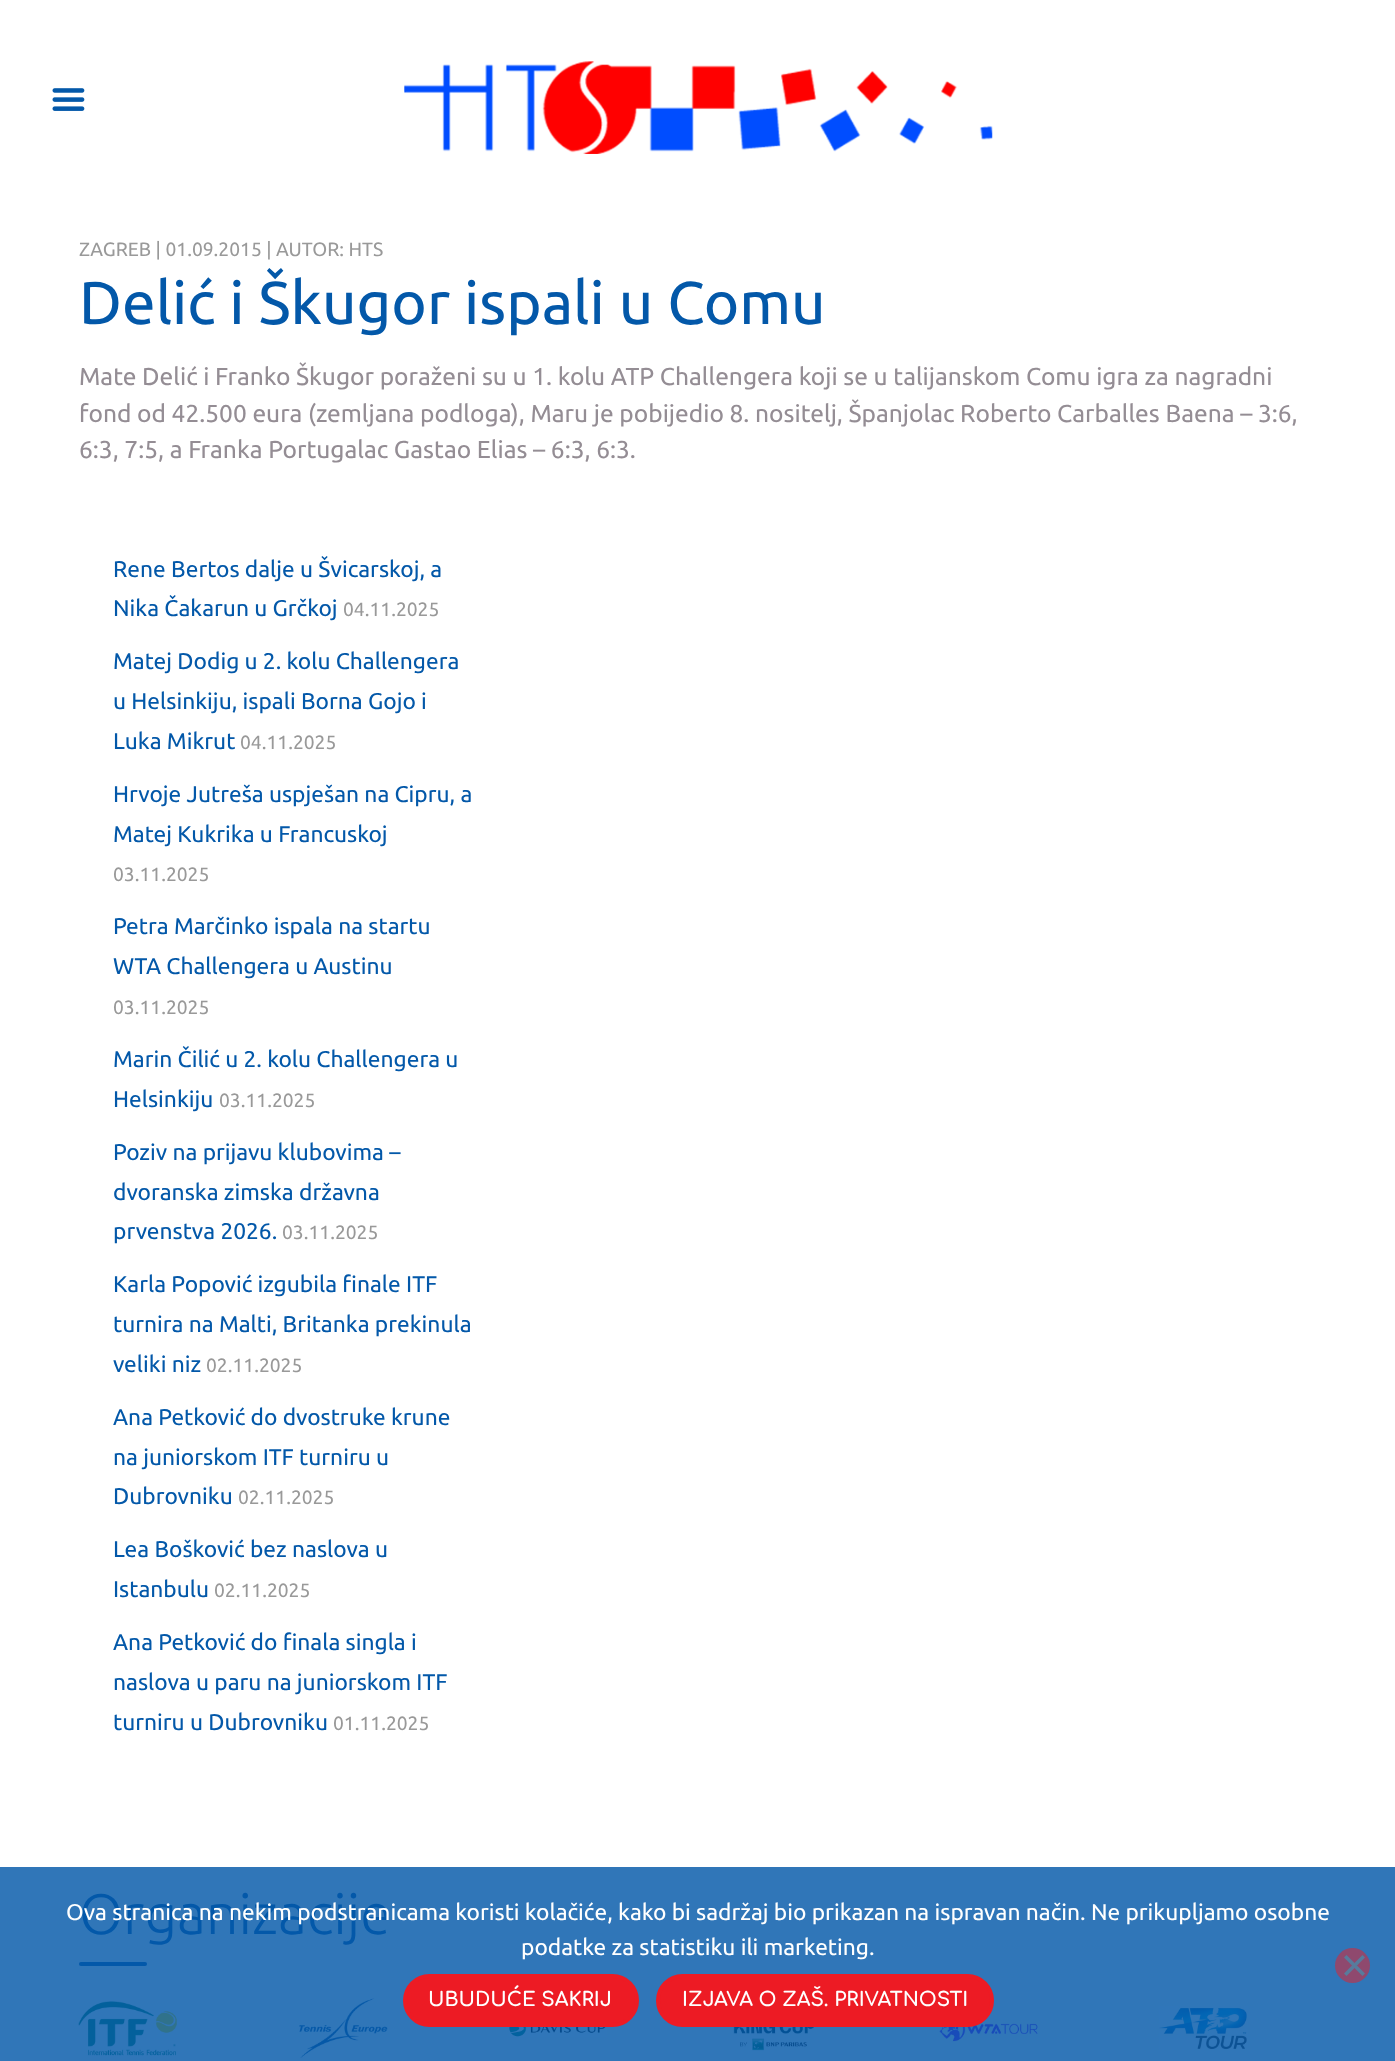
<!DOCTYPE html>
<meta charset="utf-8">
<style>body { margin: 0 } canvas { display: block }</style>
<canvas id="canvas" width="1395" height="2061"></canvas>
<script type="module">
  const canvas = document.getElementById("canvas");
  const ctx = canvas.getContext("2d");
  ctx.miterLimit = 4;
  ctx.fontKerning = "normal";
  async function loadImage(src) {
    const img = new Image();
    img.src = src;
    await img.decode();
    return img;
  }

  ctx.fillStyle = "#ffffff";
  ctx.fillRect(0, 0, 1395, 2061);
  ctx.fillStyle = "#3076b8";
  ctx.fillRect(0, 1867, 1395, 194);
  ctx.drawImage(await loadImage("img1.png"), 52, 88, 33, 23);
  ctx.drawImage(await loadImage("img2.png"), 404, 61, 589, 93);
  ctx.font = "19.25px Ubuntu";
  ctx.fillStyle = "#999999";
  ctx.fillText("ZAGREB | 01.09.2015 | AUTOR: HTS", 79, 256);
  ctx.font = "60.25px Ubuntu";
  ctx.fillStyle = "#0358a9";
  ctx.fillText("Delić i Škugor ispali u Comu", 79, 324);
  ctx.font = "24.5px Ubuntu";
  ctx.fillStyle = "#948d94";
  ctx.fillText("Mate Delić i Franko Škugor poraženi su u 1. kolu ATP Challengera koji se u talijanskom Comu igra za nagradni", 79, 385);
  ctx.fillText("fond od 42.500 eura (zemljana podloga), Maru je pobijedio 8. nositelj, Španjolac Roberto Carballes Baena – 3:6,", 79, 422);
  ctx.fillText("6:3, 7:5, a Franka Portugalac Gastao Elias – 6:3, 6:3.", 79, 458);
  ctx.font = "22.75px Ubuntu";
  ctx.fillStyle = "#0358a9";
  ctx.fillText("Rene Bertos dalje u Švicarskoj, a", 113, 577);
  ctx.fillText("Nika Čakarun u Grčkoj", 113, 616);
  ctx.font = "19.25px Ubuntu";
  ctx.fillStyle = "#999999";
  ctx.fillText("04.11.2025", 343, 616);
  ctx.font = "22.75px Ubuntu";
  ctx.fillStyle = "#0358a9";
  ctx.fillText("Matej Dodig u 2. kolu Challengera", 113, 669);
  ctx.fillText("u Helsinkiju, ispali Borna Gojo i", 113, 709);
  ctx.fillText("Luka Mikrut", 113, 749);
  ctx.font = "19.25px Ubuntu";
  ctx.fillStyle = "#999999";
  ctx.fillText("04.11.2025", 240, 749);
  ctx.font = "22.75px Ubuntu";
  ctx.fillStyle = "#0358a9";
  ctx.fillText("Hrvoje Jutreša uspješan na Cipru, a", 113, 802);
  ctx.fillText("Matej Kukrika u Francuskoj", 113, 842);
  ctx.font = "19.25px Ubuntu";
  ctx.fillStyle = "#999999";
  ctx.fillText("03.11.2025", 113, 881);
  ctx.font = "22.75px Ubuntu";
  ctx.fillStyle = "#0358a9";
  ctx.fillText("Petra Marčinko ispala na startu", 113, 934);
  ctx.fillText("WTA Challengera u Austinu", 113, 974);
  ctx.font = "19.25px Ubuntu";
  ctx.fillStyle = "#999999";
  ctx.fillText("03.11.2025", 113, 1014);
  ctx.font = "22.75px Ubuntu";
  ctx.fillStyle = "#0358a9";
  ctx.fillText("Marin Čilić u 2. kolu Challengera u", 113, 1067);
  ctx.fillText("Helsinkiju", 113, 1107);
  ctx.font = "19.25px Ubuntu";
  ctx.fillStyle = "#999999";
  ctx.fillText("03.11.2025", 219, 1107);
  ctx.font = "22.75px Ubuntu";
  ctx.fillStyle = "#0358a9";
  ctx.fillText("Poziv na prijavu klubovima –", 113, 1160);
  ctx.fillText("dvoranska zimska državna", 113, 1200);
  ctx.fillText("prvenstva 2026.", 113, 1239);
  ctx.font = "19.25px Ubuntu";
  ctx.fillStyle = "#999999";
  ctx.fillText("03.11.2025", 282, 1239);
  ctx.font = "22.75px Ubuntu";
  ctx.fillStyle = "#0358a9";
  ctx.fillText("Karla Popović izgubila finale ITF", 113, 1292);
  ctx.fillText("turnira na Malti, Britanka prekinula", 113, 1332);
  ctx.fillText("veliki niz", 113, 1372);
  ctx.font = "19.25px Ubuntu";
  ctx.fillStyle = "#999999";
  ctx.fillText("02.11.2025", 206, 1372);
  ctx.font = "22.75px Ubuntu";
  ctx.fillStyle = "#0358a9";
  ctx.fillText("Ana Petković do dvostruke krune", 113, 1425);
  ctx.fillText("na juniorskom ITF turniru u", 113, 1465);
  ctx.fillText("Dubrovniku", 113, 1504);
  ctx.font = "19.25px Ubuntu";
  ctx.fillStyle = "#999999";
  ctx.fillText("02.11.2025", 238, 1504);
  ctx.font = "22.75px Ubuntu";
  ctx.fillStyle = "#0358a9";
  ctx.fillText("Lea Bošković bez naslova u", 113, 1557);
  ctx.fillText("Istanbulu", 113, 1597);
  ctx.font = "19.25px Ubuntu";
  ctx.fillStyle = "#999999";
  ctx.fillText("02.11.2025", 214, 1597);
  ctx.font = "22.75px Ubuntu";
  ctx.fillStyle = "#0358a9";
  ctx.fillText("Ana Petković do finala singla i", 113, 1650);
  ctx.fillText("naslova u paru na juniorskom ITF", 113, 1690);
  ctx.fillText("turniru u Dubrovniku", 113, 1730);
  ctx.font = "19.25px Ubuntu";
  ctx.fillStyle = "#999999";
  ctx.fillText("01.11.2025", 333, 1730);
  ctx.font = "300 57px Ubuntu";
  ctx.fillStyle = "#0358a9";
  ctx.fillText("Organizacije", 79, 1934);
  ctx.beginPath();
  ctx.roundRect(79, 1962, 68, 4, 2);
  ctx.fill();
  ctx.drawImage(await loadImage("img3.png"), 78, 2001, 99, 55);
  ctx.drawImage(await loadImage("img4.png"), 299, 1998, 89, 60);
  ctx.drawImage(await loadImage("img5.png"), 509, 2027, 99, 10);
  ctx.drawImage(await loadImage("img6.png"), 733, 2027, 81, 24);
  ctx.drawImage(await loadImage("img7.png"), 939, 2023, 99, 19);
  ctx.drawImage(await loadImage("img8.png"), 1159, 2006, 89, 44);
  ctx.font = "22.75px Ubuntu";
  ctx.fillStyle = "#ffffff";
  ctx.fillText("Ova stranica na nekim podstranicama koristi kolačiće, kako bi sadržaj bio prikazan na ispravan način. Ne prikupljamo osobne", 66, 1920);
  ctx.fillText("podatke za statistiku ili marketing.", 521, 1955);
  ctx.fillStyle = "#8f496e";
  ctx.beginPath();
  ctx.arc(1352.5, 1965.5, 17.5, 0, Math.PI * 2);
  ctx.fill();
  ctx.fillStyle = "#587b9c";
  ctx.beginPath();
  ctx.moveTo(1362.5, 1955);
  ctx.lineTo(1365, 1957.5);
  ctx.lineTo(1346.5, 1976);
  ctx.lineTo(1344, 1973.5);
  ctx.closePath();
  ctx.fill();
  ctx.beginPath();
  ctx.moveTo(1344, 1957.5);
  ctx.lineTo(1346.5, 1955);
  ctx.lineTo(1365, 1973.5);
  ctx.lineTo(1362.5, 1976);
  ctx.closePath();
  ctx.fill();
  ctx.fillStyle = "#ed1b24";
  ctx.beginPath();
  ctx.roundRect(405, 1976, 232, 49, 24.5);
  ctx.fill();
  ctx.strokeStyle = "#ed1b24";
  ctx.lineWidth = 4;
  ctx.stroke();
  ctx.font = "bold 19.5px Comfortaa";
  ctx.fillStyle = "#ffffff";
  ctx.fillText("UBUDUĆE SAKRIJ", 428, 2006);
  ctx.fillStyle = "#ed1b24";
  ctx.beginPath();
  ctx.roundRect(658, 1976, 334, 49, 24.5);
  ctx.fill();
  ctx.stroke();
  ctx.fillStyle = "#ffffff";
  ctx.fillText("IZJAVA O ZAŠ. PRIVATNOSTI", 682, 2006);
</script>
